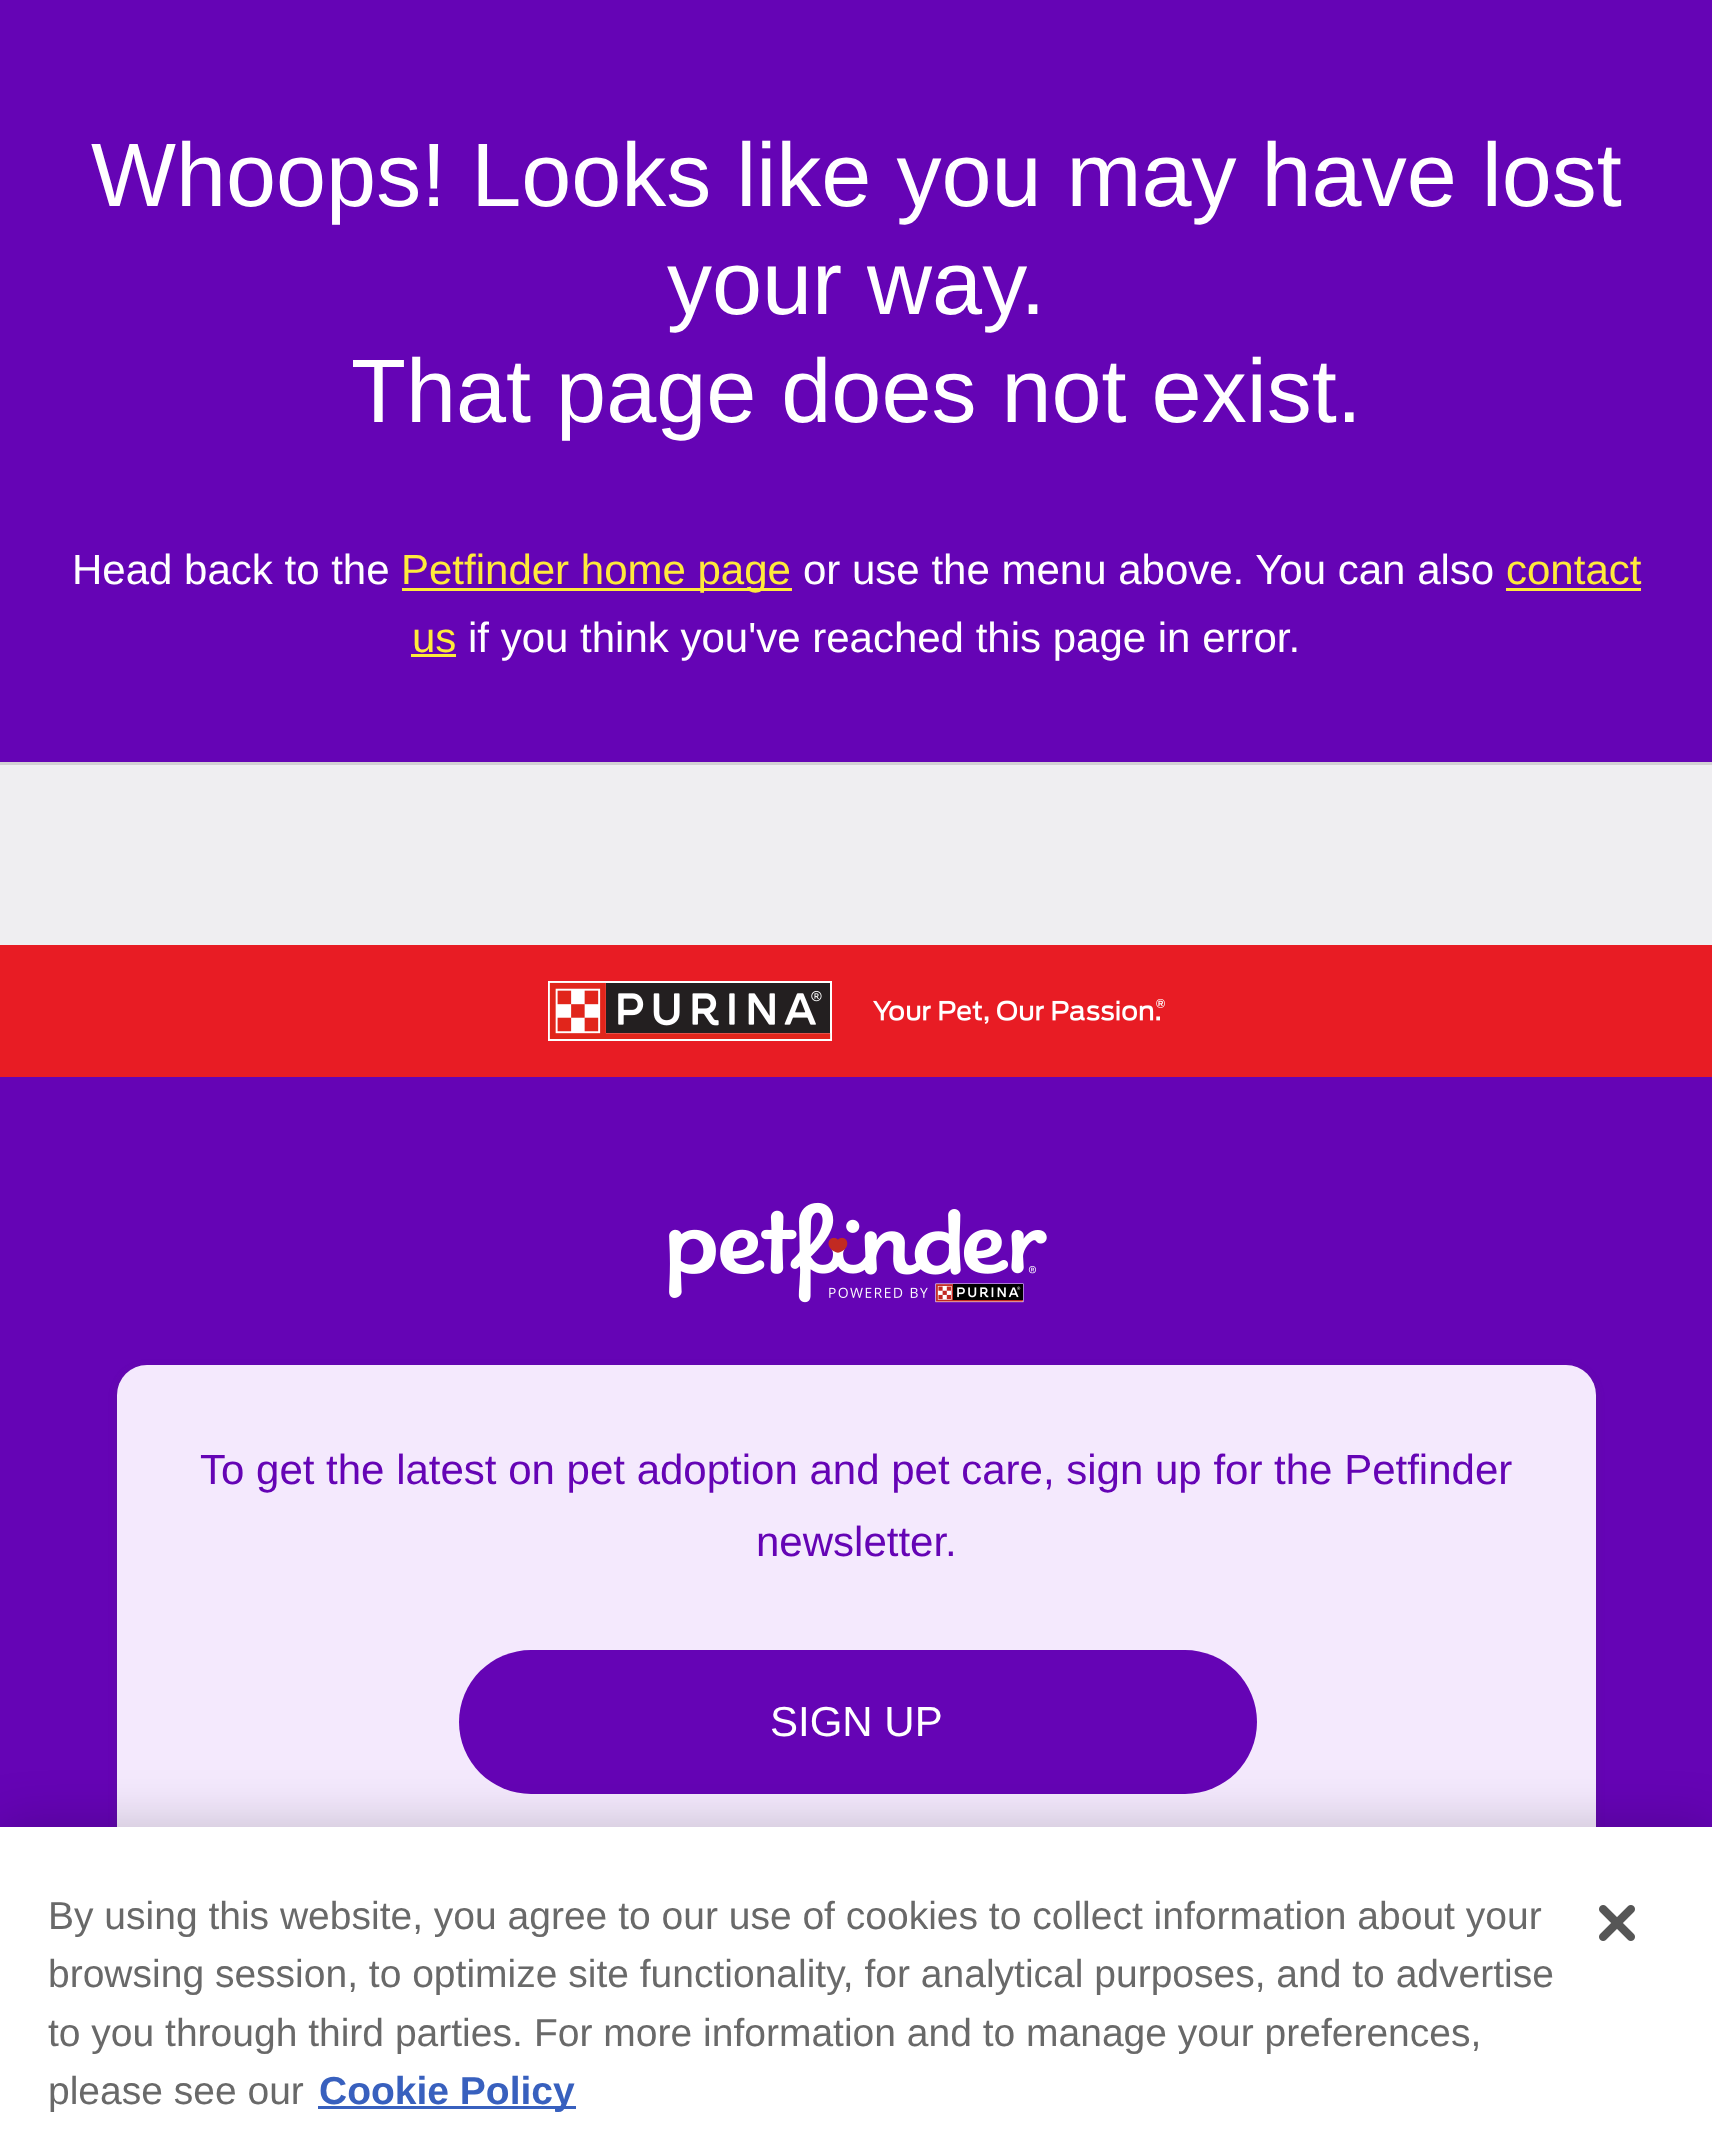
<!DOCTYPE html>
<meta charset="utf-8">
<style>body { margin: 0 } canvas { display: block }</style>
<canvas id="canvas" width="1712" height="2151"></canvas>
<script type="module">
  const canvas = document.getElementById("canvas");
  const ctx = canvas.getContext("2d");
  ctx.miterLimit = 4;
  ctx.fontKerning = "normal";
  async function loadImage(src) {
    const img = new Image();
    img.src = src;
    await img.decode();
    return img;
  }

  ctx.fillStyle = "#efeef1";
  ctx.fillRect(0, 0, 1712, 2151);
  ctx.fillStyle = "#6504b5";
  ctx.fillRect(0, 0, 1712, 762);
  ctx.fillStyle = "#d2d1d3";
  ctx.fillRect(0, 762, 1712, 3);
  ctx.font = "90px Liberation Sans";
  ctx.fillStyle = "#ffffff";
  ctx.fillText("Whoops! Looks like you may have lost", 91, 206);
  ctx.fillText("your way.", 667, 314);
  ctx.fillText("That page does not exist.", 351, 422);
  ctx.font = "42px Liberation Sans";
  ctx.fillText("Head back to the", 72, 584);
  ctx.fillStyle = "#ffea3b";
  ctx.fillRect(402, 588, 390, 3);
  ctx.fillText("Petfinder home page", 401, 584);
  ctx.fillStyle = "#ffffff";
  ctx.fillText("or use the menu above. You can also", 803, 584);
  ctx.fillStyle = "#ffea3b";
  ctx.fillText("contact", 1506, 584);
  ctx.fillRect(1506, 588, 135, 3);
  ctx.fillText("us", 412, 652);
  ctx.fillRect(411, 654, 45, 3);
  ctx.fillStyle = "#ffffff";
  ctx.fillText("if you think you've reached this page in error.", 468, 652);
  ctx.fillStyle = "#6504b5";
  ctx.fillRect(0, 1077, 1712, 750);
  ctx.fillStyle = "#e81c24";
  ctx.fillRect(0, 945, 1712, 132);
  ctx.drawImage(await loadImage("img1.png"), 548, 981, 617, 60);
  ctx.drawImage(await loadImage("img2.png"), 669, 1202, 378, 101);
  ctx.fillStyle = "rgba(77, 71, 81, 0.2)";
  ctx.filter = "blur(4.5px)";
  ctx.beginPath();
  ctx.roundRect(117, 1368, 1479, 498, 30);
  ctx.fill();
  ctx.filter = "none";
  ctx.fillStyle = "#f4e9fd";
  ctx.beginPath();
  ctx.roundRect(117, 1365, 1479, 498, 30);
  ctx.fill();
  ctx.fillStyle = "#6504b5";
  ctx.fillText("To get the latest on pet adoption and pet care, sign up for the Petfinder", 200, 1484);
  ctx.fillText("newsletter.", 756, 1556);
  ctx.beginPath();
  ctx.roundRect(459, 1650, 798, 144, 72);
  ctx.fill();
  ctx.fillStyle = "#ffffff";
  ctx.fillText("SIGN UP", 770, 1736);
  ctx.fillStyle = "rgba(0, 0, 0, 0.2)";
  ctx.filter = "blur(27px)";
  ctx.beginPath();
  ctx.rect(0, 1827, 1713, 324);
  ctx.fill();
  ctx.filter = "none";
  ctx.fillStyle = "#ffffff";
  ctx.fillRect(0, 1827, 1712, 324);
  ctx.font = "39px Liberation Sans";
  ctx.fillStyle = "#696969";
  ctx.fillText("By using this website, you agree to our use of cookies to collect information about your", 48, 1929);
  ctx.fillText("browsing session, to optimize site functionality, for analytical purposes, and to advertise", 48, 1987);
  ctx.fillText("to you through third parties.", 48, 2046);
  ctx.fillText("For more information and to manage your preferences,", 534, 2046);
  ctx.fillText("please see our", 48, 2104);
  ctx.fillStyle = "#3860be";
  ctx.fillRect(318, 2106, 258, 3);
  ctx.font = "bold 39px Liberation Sans";
  ctx.fillText("Cookie Policy", 319, 2104);
  ctx.drawImage(await loadImage("img3.png"), 1599, 1905, 36, 36);
</script>
